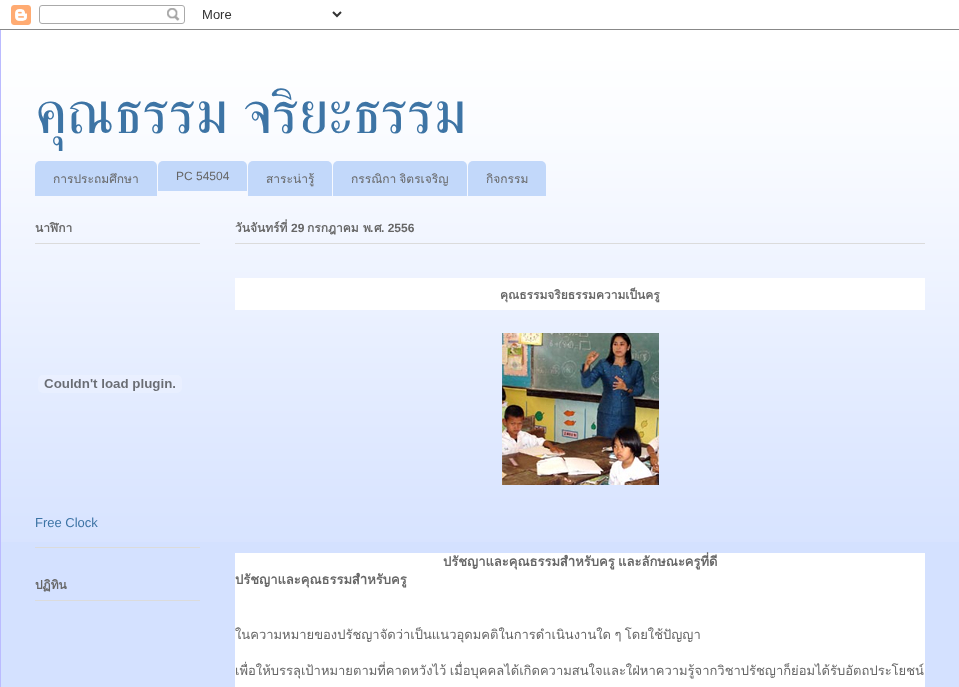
<!DOCTYPE html>
<meta charset="utf-8">
<style>body { margin: 0 } canvas { display: block }</style>
<canvas id="canvas" width="959" height="687"></canvas>
<script type="module">
  const canvas = document.getElementById("canvas");
  const ctx = canvas.getContext("2d");
  ctx.miterLimit = 4;
  ctx.fontKerning = "normal";
  async function loadImage(src) {
    const img = new Image();
    img.src = src;
    await img.decode();
    return img;
  }

  ctx.fillStyle = "#ffffff";
  ctx.fillRect(0, 0, 959, 687);
  ctx.drawImage(await loadImage("img1.png"), 0, 0, 959, 29);
  ctx.drawImage(await loadImage("img2.png"), 0, 5, 959, 25);
  ctx.fillStyle = "#d4e1ff";
  ctx.fillRect(1, 37, 958, 650);
  ctx.drawImage(await loadImage("img3.png"), 1, 30, 958, 512);
  ctx.fillStyle = "#bbbbff";
  ctx.fillRect(0, 30, 1, 657);
  ctx.save();
  ctx.beginPath();
  ctx.rect(35, 57, 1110, 101);
  ctx.clip();
  ctx.font = "60px FreeSerif";
  ctx.fillStyle = "#3d74a5";
  ctx.fillText("คุณธรรม จริยะธรรม", 35, 133);
  ctx.restore();
  ctx.fillStyle = "#c2d8fa";
  ctx.beginPath();
  ctx.roundRect(35, 161, 122, 35, [5, 5, 0, 0]);
  ctx.fill();
  ctx.font = "12px Loma";
  ctx.fillStyle = "#666666";
  ctx.fillText("การประถมศึกษา", 53, 183);
  ctx.fillStyle = "#c2d8fa";
  ctx.beginPath();
  ctx.roundRect(158, 161, 89, 30, [5, 5, 0, 0]);
  ctx.fill();
  ctx.font = "12px Liberation Sans";
  ctx.fillStyle = "#666666";
  ctx.fillText("PC 54504", 176, 180);
  ctx.fillStyle = "#c2d8fa";
  ctx.beginPath();
  ctx.roundRect(248, 161, 84, 35, [5, 5, 0, 0]);
  ctx.fill();
  ctx.font = "12px Loma";
  ctx.fillStyle = "#666666";
  ctx.fillText("สาระน่ารู้", 266, 183);
  ctx.fillStyle = "#c2d8fa";
  ctx.beginPath();
  ctx.roundRect(333, 161, 134, 35, [5, 5, 0, 0]);
  ctx.fill();
  ctx.wordSpacing = "-1px";
  ctx.fillStyle = "#666666";
  ctx.fillText("กรรณิกา จิตรเจริญ", 351, 183);
  ctx.fillStyle = "#c2d8fa";
  ctx.beginPath();
  ctx.roundRect(468, 161, 78, 35, [5, 5, 0, 0]);
  ctx.fill();
  ctx.wordSpacing = "0px";
  ctx.fillStyle = "#666666";
  ctx.fillText("กิจกรรม", 486, 183);
  ctx.fillStyle = "#dbdbdb";
  ctx.fillRect(35, 547, 165, 1);
  ctx.fillRect(35, 243, 165, 1);
  ctx.font = "bold 12px Loma";
  ctx.fillStyle = "#666666";
  ctx.fillText("นาฬิกา", 35, 232);
  ctx.drawImage(await loadImage("img4.png"), 38, 375, 144, 18);
  ctx.font = "13px Liberation Sans";
  ctx.fillStyle = "#3d74a5";
  ctx.fillText("Free Clock", 35, 527);
  ctx.fillStyle = "#dbdbdb";
  ctx.fillRect(35, 600, 165, 1);
  ctx.font = "bold 12px Loma";
  ctx.fillStyle = "#666666";
  ctx.fillText("ปฏิทิน", 35, 589);
  ctx.fillStyle = "#dbdbdb";
  ctx.fillRect(235, 243, 690, 1);
  ctx.fillStyle = "#666666";
  ctx.fillText("วันจันทร์ที่", 235, 232);
  ctx.font = "bold 12px Liberation Sans";
  ctx.fillText("29", 291, 232);
  ctx.font = "bold 12px Loma";
  ctx.fillText("กรกฎาคม", 307, 232);
  ctx.fillText("พ", 363, 232);
  ctx.font = "bold 12px Liberation Sans";
  ctx.fillText(".", 370, 232);
  ctx.font = "bold 12px Loma";
  ctx.fillText("ศ", 374, 232);
  ctx.font = "bold 12px Liberation Sans";
  ctx.fillText(". 2556", 381, 232);
  ctx.fillStyle = "#ffffff";
  ctx.fillRect(235, 278, 690, 32);
  ctx.font = "bold 12px Loma";
  ctx.fillStyle = "#666666";
  ctx.fillText("คุณธรรมจริยธรรมความเป็นครู", 500, 299);
  ctx.drawImage(await loadImage("img5.png"), 502, 333, 157, 152);
  ctx.fillStyle = "#ffffff";
  ctx.fillRect(235, 553, 690, 134);
  ctx.wordSpacing = "-1px";
  ctx.font = "bold 13px Loma";
  ctx.fillStyle = "#666666";
  ctx.fillText("ปรัชญาและคุณธรรมสำหรับครู และลักษณะครูที่ดี", 443, 566);
  ctx.wordSpacing = "0px";
  ctx.fillText("ปรัชญาและคุณธรรมสำหรับครู", 235, 584);
  ctx.wordSpacing = "-1px";
  ctx.font = "13px Loma";
  ctx.fillText("ในความหมายของปรัชญาจัดว่าเป็นแนวอุดมคติในการดำเนินงานใด ๆ โดยใช้ปัญญา", 235, 639);
  ctx.fillText("เพื่อให้บรรลุเป้าหมายตามที่คาดหวังไว้ เมื่อบุคคลได้เกิดความสนใจและใฝ่หาความรู้จากวิชาปรัชญาก็ย่อมได้รับอัตถประโยชน์", 235, 675);
</script>
